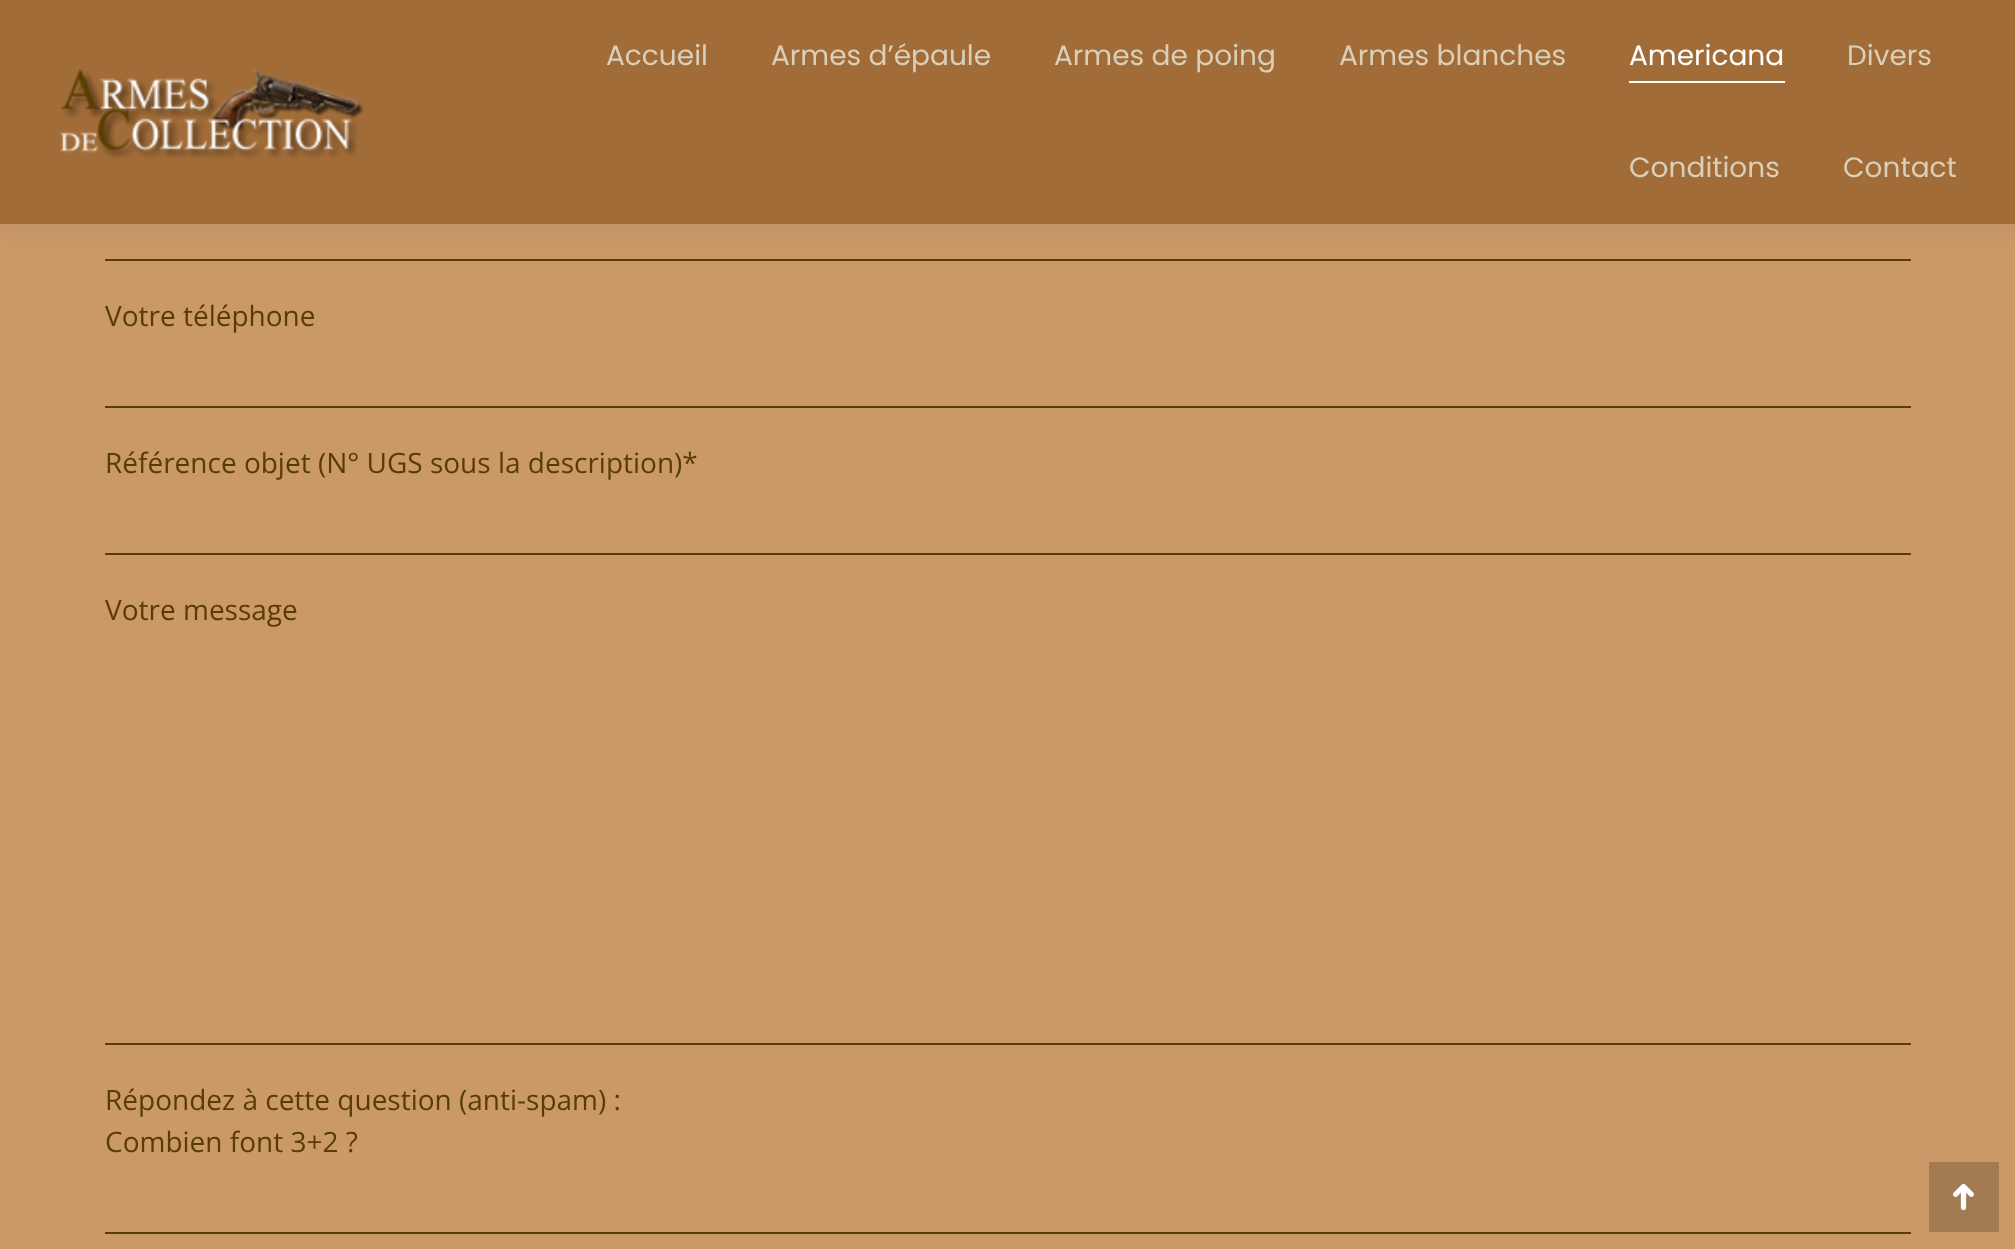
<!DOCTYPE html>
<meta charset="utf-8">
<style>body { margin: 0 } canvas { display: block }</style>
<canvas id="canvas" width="2015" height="1249"></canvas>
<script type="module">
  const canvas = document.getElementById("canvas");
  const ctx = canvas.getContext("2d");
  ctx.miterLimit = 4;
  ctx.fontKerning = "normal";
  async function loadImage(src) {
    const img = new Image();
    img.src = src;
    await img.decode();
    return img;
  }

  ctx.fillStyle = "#cb9968";
  ctx.fillRect(0, 0, 2015, 1249);
  ctx.fillStyle = "#593d00";
  ctx.fillRect(105, 259, 1806, 2);
  ctx.fillStyle = "rgba(0, 0, 0, 0.07)";
  ctx.filter = "blur(13px)";
  ctx.beginPath();
  ctx.rect(-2, -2, 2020, 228);
  ctx.fill();
  ctx.filter = "none";
  ctx.fillStyle = "#a16c38";
  ctx.fillRect(0, 0, 2015, 224);
  ctx.drawImage(await loadImage("img1.png"), 59, 61, 305, 98);
  ctx.font = "28px Poppins";
  ctx.fillStyle = "#dad0ba";
  ctx.fillText("Accueil", 606, 65);
  ctx.fillText("Armes d’épaule", 771, 65);
  ctx.fillText("Armes de poing", 1054, 65);
  ctx.fillText("Armes blanches", 1339, 65);
  ctx.fillStyle = "#ffffff";
  ctx.fillText("Americana", 1629, 65);
  ctx.fillRect(1629, 81, 156, 2);
  ctx.fillStyle = "#dad0ba";
  ctx.fillText("Divers", 1847, 65);
  ctx.fillText("Conditions", 1629, 177);
  ctx.fillText("Contact", 1843, 177);
  ctx.font = "28px Open Sans";
  ctx.fillStyle = "#593d00";
  ctx.fillText("Votre téléphone", 105, 326);
  ctx.fillRect(105, 406, 1806, 2);
  ctx.fillText("Référence objet (N° UGS sous la description)*", 105, 473);
  ctx.fillRect(105, 553, 1806, 2);
  ctx.fillText("Votre message", 105, 620);
  ctx.fillRect(105, 1043, 1806, 2);
  ctx.fillText("Répondez à cette question (anti-spam) :", 105, 1110);
  ctx.fillText("Combien font 3+2 ?", 105, 1152);
  ctx.fillRect(105, 1232, 1806, 2);
  ctx.fillStyle = "#a27a53";
  ctx.fillRect(1929, 1162, 70, 70);
  ctx.drawImage(await loadImage("img2.png"), 1953, 1183, 21, 28);
</script>
